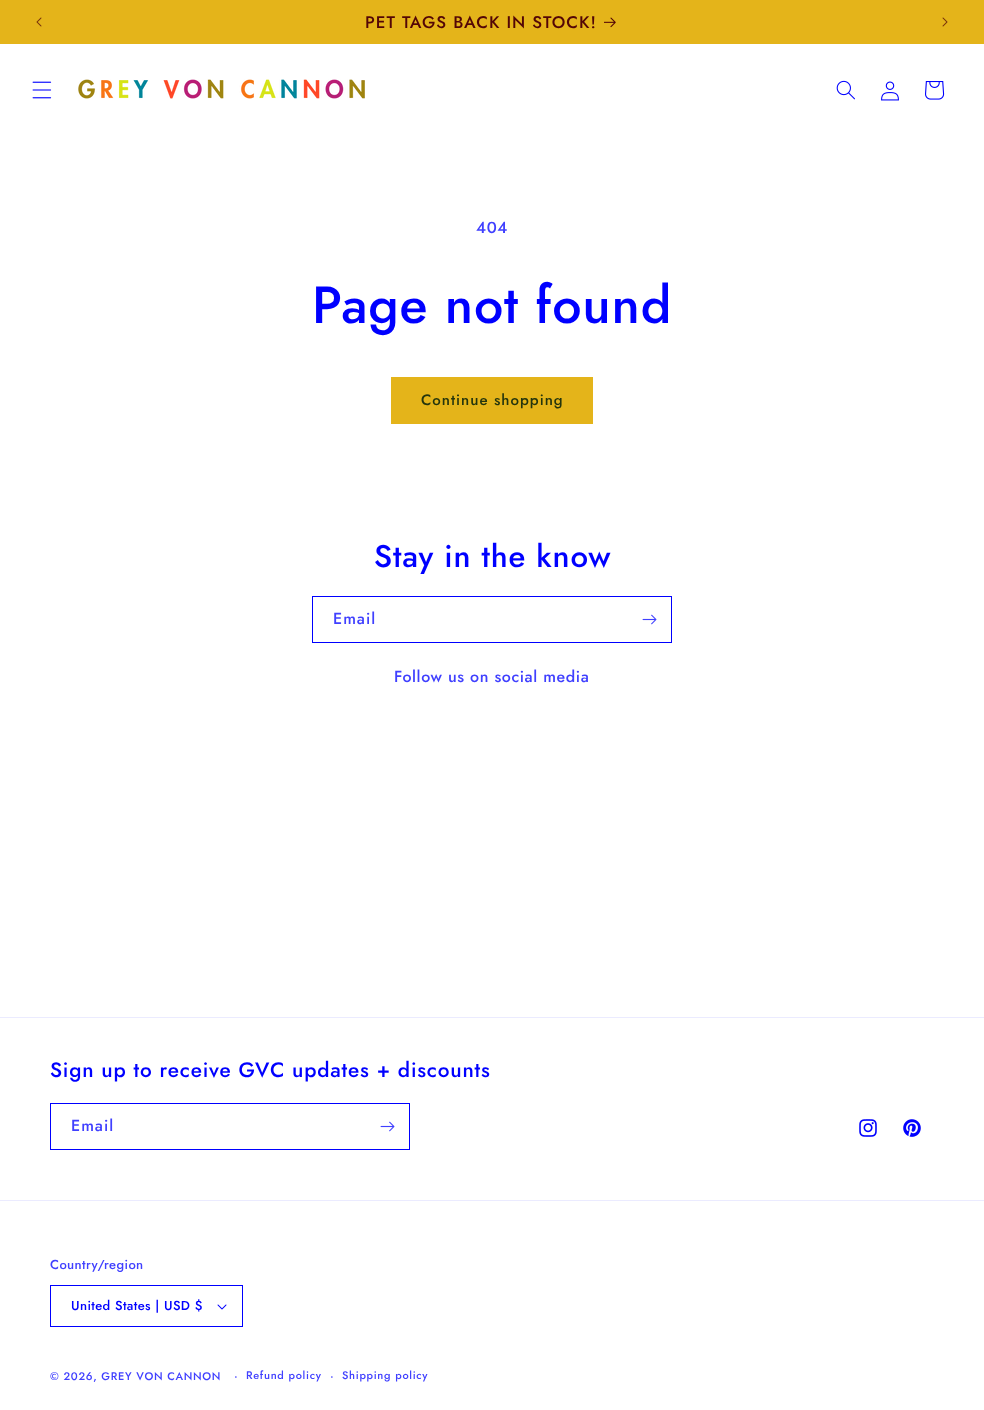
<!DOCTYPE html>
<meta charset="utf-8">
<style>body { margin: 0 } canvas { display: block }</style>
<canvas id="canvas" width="984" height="1410"></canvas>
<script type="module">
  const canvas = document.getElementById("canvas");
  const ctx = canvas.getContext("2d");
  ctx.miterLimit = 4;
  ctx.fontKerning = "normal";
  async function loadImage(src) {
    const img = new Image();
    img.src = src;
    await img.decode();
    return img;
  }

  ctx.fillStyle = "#ffffff";
  ctx.fillRect(0, 0, 984, 1410);
  ctx.fillStyle = "#e4b41a";
  ctx.fillRect(0, 0, 984, 44);
  ctx.drawImage(await loadImage("img1.png"), 36, 17, 6, 10);
  ctx.letterSpacing = "1px";
  ctx.font = "500 16.9px Jost";
  ctx.fillStyle = "#530606";
  ctx.fillText("PET TAGS BACK IN STOCK!", 365, 28);
  ctx.drawImage(await loadImage("img2.png"), 604, 17, 12, 11);
  ctx.drawImage(await loadImage("img3.png"), 942, 17, 6, 10);
  ctx.drawImage(await loadImage("img4.png"), 32, 81, 20, 18);
  ctx.drawImage(await loadImage("img5.png"), 78, 79, 287, 20);
  ctx.drawImage(await loadImage("img6.png"), 836, 80, 19, 20);
  ctx.drawImage(await loadImage("img7.png"), 881, 81, 18, 20);
  ctx.drawImage(await loadImage("img8.png"), 925, 81, 20, 19);
  ctx.letterSpacing = "0.6px";
  ctx.font = "500 16px Jost";
  ctx.fillStyle = "#4040ff";
  ctx.fillText("404", 476, 233);
  ctx.letterSpacing = "0.8px";
  ctx.font = "500 52px Jost";
  ctx.fillStyle = "#0000ff";
  ctx.fillText("Page not found", 312, 323);
  ctx.fillStyle = "#e4b41a";
  ctx.fillRect(391, 377, 202, 47);
  ctx.letterSpacing = "1px";
  ctx.font = "500 15px Jost";
  ctx.fillStyle = "#24350d";
  ctx.fillText("Continue shopping", 421, 405);
  ctx.letterSpacing = "0.8px";
  ctx.font = "500 31.25px Jost";
  ctx.fillStyle = "#0000ff";
  ctx.fillText("Stay in the know", 374, 567);
  ctx.strokeStyle = "#0000ff";
  ctx.strokeRect(312.5, 596.5, 359, 46);
  ctx.letterSpacing = "1px";
  ctx.font = "500 16px Jost";
  ctx.fillStyle = "#4040ff";
  ctx.fillText("Email", 333, 624);
  ctx.drawImage(await loadImage("img9.png"), 642, 614, 15, 11);
  ctx.letterSpacing = "0.6px";
  ctx.fillText("Follow us on social media", 394, 682);
  ctx.fillStyle = "#ebebff";
  ctx.fillRect(0, 1017, 984, 1);
  ctx.letterSpacing = "0.8px";
  ctx.font = "500 20.8px Jost";
  ctx.fillStyle = "#0000ff";
  ctx.fillText("Sign up to receive GVC updates + discounts", 50, 1077);
  ctx.strokeRect(50.5, 1103.5, 359, 46);
  ctx.letterSpacing = "1px";
  ctx.font = "500 16px Jost";
  ctx.fillStyle = "#4040ff";
  ctx.fillText("Email", 71, 1131);
  ctx.drawImage(await loadImage("img9.png"), 380, 1121, 15, 11);
  ctx.drawImage(await loadImage("img10.png"), 859, 1119, 18, 18);
  ctx.drawImage(await loadImage("img11.png"), 903, 1119, 18, 18);
  ctx.fillStyle = "#ebebff";
  ctx.fillRect(0, 1200, 984, 1);
  ctx.letterSpacing = "0.4px";
  ctx.font = "500 13px Jost";
  ctx.fillStyle = "#4040ff";
  ctx.fillText("Country/region", 50, 1269);
  ctx.drawImage(await loadImage("img12.png"), 217, 1304, 10, 6);
  ctx.strokeRect(50.5, 1285.5, 192, 41);
  ctx.fillStyle = "#0000ff";
  ctx.fillText("United States | USD $", 71, 1310);
  ctx.letterSpacing = "0.7px";
  ctx.font = "500 11px Jost";
  ctx.fillStyle = "#4040ff";
  ctx.fillText("© 2026, GREY VON CANNON", 50, 1380);
  ctx.font = "500 12px Jost";
  ctx.fillText("·", 234, 1380);
  ctx.font = "500 11px Jost";
  ctx.fillText("Refund policy", 246, 1379);
  ctx.font = "500 12px Jost";
  ctx.fillText("·", 330, 1380);
  ctx.font = "500 11px Jost";
  ctx.fillText("Shipping policy", 342, 1379);
</script>
